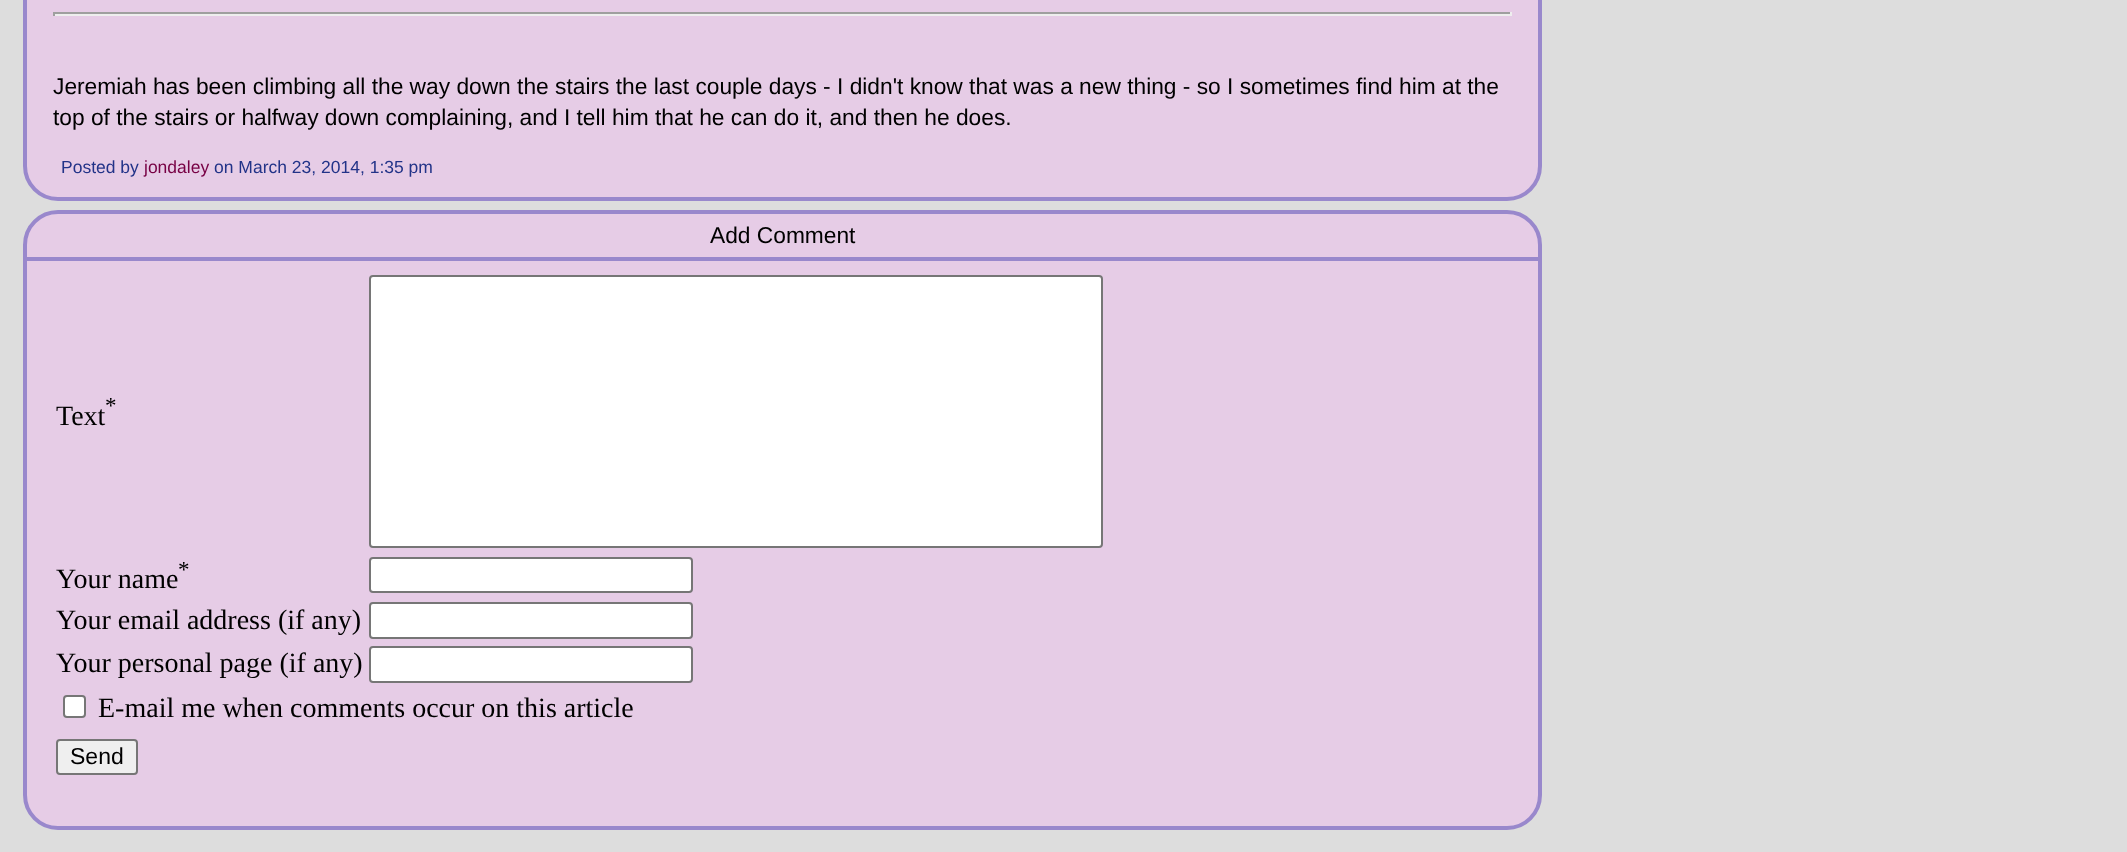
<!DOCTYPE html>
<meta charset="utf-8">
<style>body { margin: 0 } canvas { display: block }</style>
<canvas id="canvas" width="2127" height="852"></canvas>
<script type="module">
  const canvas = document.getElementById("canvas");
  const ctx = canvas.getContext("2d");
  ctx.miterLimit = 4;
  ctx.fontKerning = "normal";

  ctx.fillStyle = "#dddddd";
  ctx.fillRect(0, 0, 2127, 852);
  ctx.fillStyle = "#e6cce6";
  ctx.beginPath();
  ctx.roundRect(25, -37, 1515, 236, 33);
  ctx.fill();
  ctx.strokeStyle = "#9988cc";
  ctx.lineWidth = 4;
  ctx.stroke();
  ctx.fillStyle = "#9f9f9f";
  ctx.fillRect(53, 12, 1459, 2);
  ctx.fillStyle = "#eeeeee";
  ctx.fillRect(1510, 12, 2, 4);
  ctx.fillRect(53, 14, 1459, 2);
  ctx.fillStyle = "#9f9f9f";
  ctx.fillRect(53, 12, 2, 4);
  ctx.font = "22.75px Liberation Sans";
  ctx.fillStyle = "#000000";
  ctx.fillText("Jeremiah has been climbing all the way down the stairs the last couple days - I didn't know that was a new thing - so I sometimes find him at the", 53, 94);
  ctx.fillText("top of the stairs or halfway down complaining, and I tell him that he can do it, and then he does.", 53, 125);
  ctx.font = "17.5px Liberation Sans";
  ctx.fillStyle = "#223388";
  ctx.fillText("Posted by", 61, 173);
  ctx.fillStyle = "#770044";
  ctx.fillText("jondaley", 144, 173);
  ctx.fillStyle = "#223388";
  ctx.fillText("on March 23, 2014, 1:35 pm", 214, 173);
  ctx.fillStyle = "#e6cce6";
  ctx.beginPath();
  ctx.roundRect(25, 212, 1515, 616, 33);
  ctx.fill();
  ctx.stroke();
  ctx.fillStyle = "#9988cc";
  ctx.fillRect(26, 257, 1512, 4);
  ctx.font = "22.75px Liberation Sans";
  ctx.fillStyle = "#000000";
  ctx.fillText("Add Comment", 710, 243);
  ctx.font = "23px Liberation Serif";
  ctx.fillText("*", 105, 413);
  ctx.font = "28px Liberation Serif";
  ctx.fillText("Text", 56, 425);
  ctx.fillStyle = "#ffffff";
  ctx.beginPath();
  ctx.roundRect(370, 276, 732, 271, 3);
  ctx.fill();
  ctx.strokeStyle = "#767676";
  ctx.lineWidth = 2;
  ctx.stroke();
  ctx.font = "23px Liberation Serif";
  ctx.fillStyle = "#000000";
  ctx.fillText("*", 178, 577);
  ctx.font = "28px Liberation Serif";
  ctx.fillText("Your name", 56, 588);
  ctx.fillStyle = "#ffffff";
  ctx.beginPath();
  ctx.roundRect(370, 558, 322, 34, 3);
  ctx.fill();
  ctx.stroke();
  ctx.fillStyle = "#000000";
  ctx.fillText("Your email address (if any)", 56, 629);
  ctx.fillStyle = "#ffffff";
  ctx.beginPath();
  ctx.roundRect(370, 603, 322, 35, 3);
  ctx.fill();
  ctx.stroke();
  ctx.fillStyle = "#000000";
  ctx.fillText("Your personal page (if any)", 56, 672);
  ctx.fillStyle = "#ffffff";
  ctx.beginPath();
  ctx.roundRect(370, 647, 322, 35, 3);
  ctx.fill();
  ctx.stroke();
  ctx.beginPath();
  ctx.roundRect(64, 696, 21, 21, 3);
  ctx.fill();
  ctx.stroke();
  ctx.fillStyle = "#000000";
  ctx.fillText("E-mail me when comments occur on this article", 98, 717);
  ctx.fillStyle = "#efefef";
  ctx.beginPath();
  ctx.roundRect(57, 740, 80, 34, 3);
  ctx.fill();
  ctx.stroke();
  ctx.font = "23px Liberation Sans";
  ctx.fillStyle = "#000000";
  ctx.fillText("Send", 70, 764);
</script>
